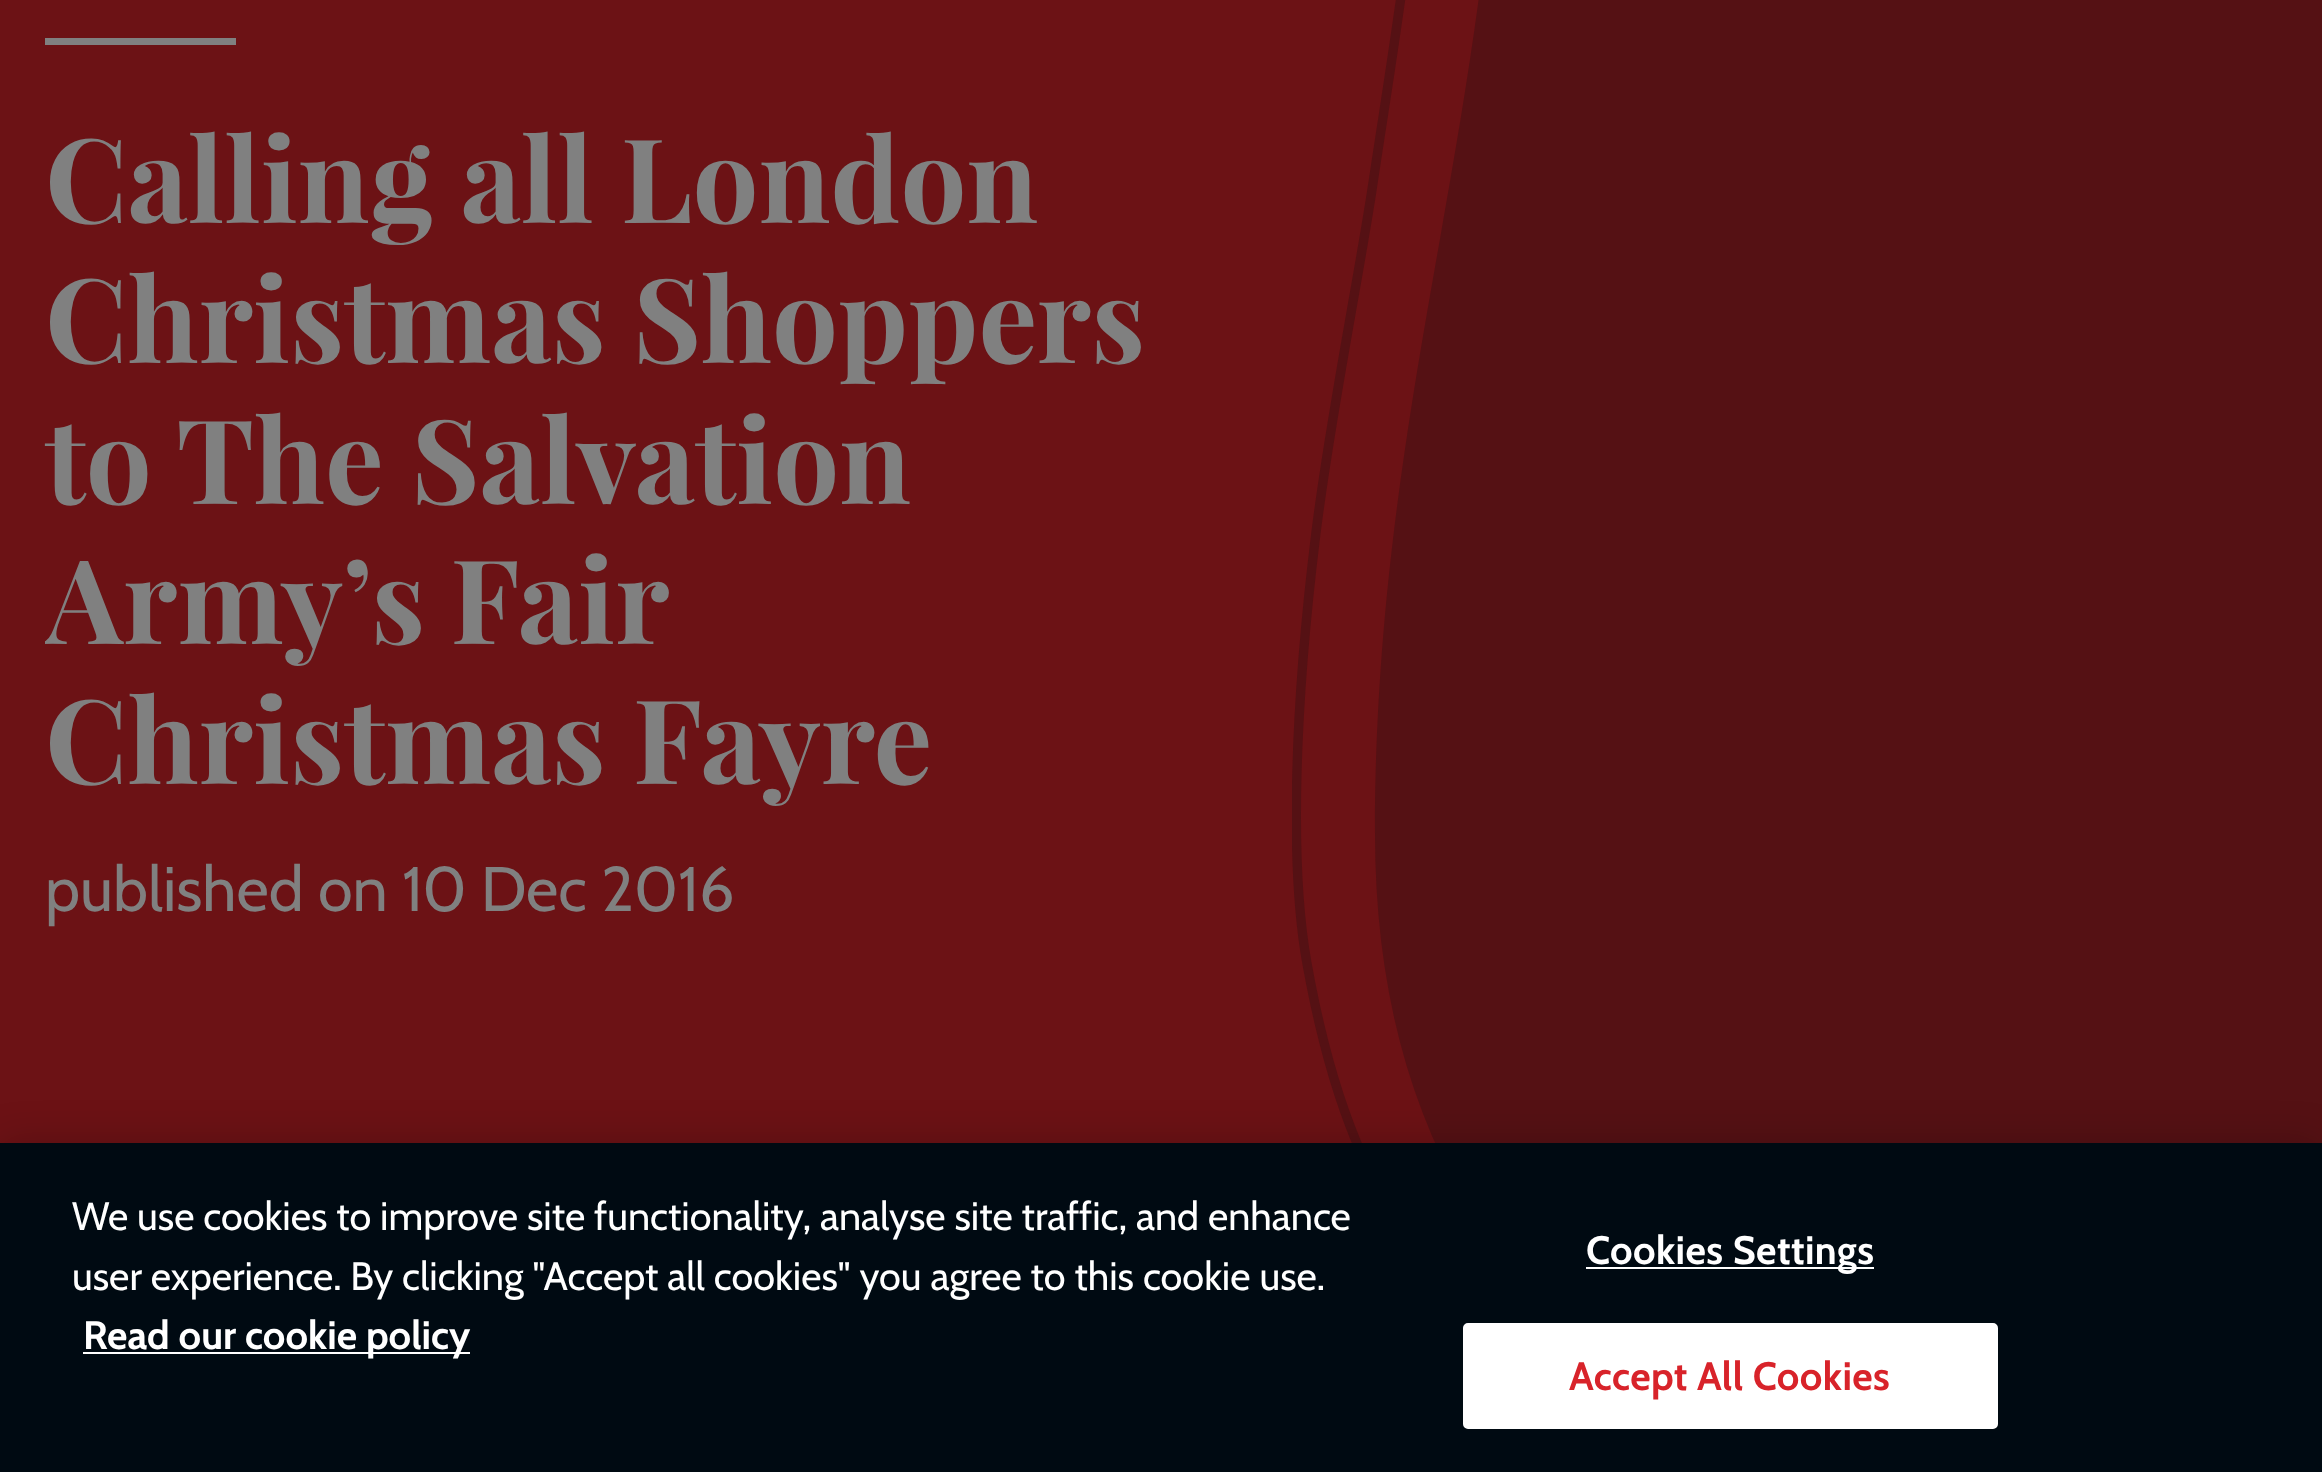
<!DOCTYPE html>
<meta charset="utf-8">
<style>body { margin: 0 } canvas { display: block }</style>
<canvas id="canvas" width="2322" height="1472"></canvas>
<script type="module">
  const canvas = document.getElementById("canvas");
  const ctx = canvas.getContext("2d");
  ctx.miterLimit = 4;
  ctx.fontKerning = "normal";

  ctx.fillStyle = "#6c1215";
  ctx.fillRect(0, 0, 2322, 1472);
  ctx.fillStyle = "#551114";
  ctx.fillRect(1860, 0, 462, 1143);
  ctx.fillStyle = "#808080";
  ctx.fillRect(45, 38, 191, 7);
  ctx.font = "bold 117px Playfair Display";
  ctx.fillText("Calling all London", 45, 223);
  ctx.fillText("Christmas Shoppers", 45, 363);
  ctx.fillText("to The Salvation", 45, 504);
  ctx.save();
  ctx.beginPath();
  ctx.rect(45, 0, 2232, 1154);
  ctx.clip();
  ctx.wordSpacing = "-2px";
  ctx.fillText("Army’s Fair", 45, 644);
  ctx.restore();
  ctx.fillText("Christmas Fayre", 45, 784);
  ctx.font = "63px Cabin";
  ctx.fillText("published on 10 Dec 2016", 45, 911);
  ctx.fillStyle = "#551114";
  ctx.beginPath();
  ctx.moveTo(1860, 1222);
  ctx.lineTo(1477, 1222);
  ctx.bezierCurveTo(1408, 1111, 1375, 983, 1375, 833);
  ctx.bezierCurveTo(1375, 608, 1408, 420, 1440, 239);
  ctx.bezierCurveTo(1467, 86, 1494, -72, 1502, -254);
  ctx.lineTo(1860, -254);
  ctx.closePath();
  ctx.fill("evenodd");
  ctx.save();
  ctx.beginPath();
  ctx.rect(1292, 0, 569, 1222);
  ctx.clip();
  ctx.beginPath();
  ctx.moveTo(1423.5, -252.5);
  ctx.bezierCurveTo(1420.5, -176.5, 1417.5, -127, 1414.5, -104);
  ctx.bezierCurveTo(1398.5, 24, 1385, 102, 1371.5, 193);
  ctx.bezierCurveTo(1355.5, 295, 1330.5, 416.5, 1316, 532.5);
  ctx.bezierCurveTo(1295, 702, 1289, 864, 1307, 963.5);
  ctx.bezierCurveTo(1327, 1075, 1357.5, 1161.5, 1398.5, 1222);
  ctx.strokeStyle = "#551114";
  ctx.lineWidth = 9.3;
  ctx.stroke();
  ctx.restore();
  ctx.fillStyle = "rgba(0, 0, 0, 0.2)";
  ctx.filter = "blur(20px)";
  ctx.beginPath();
  ctx.rect(0, 1143, 2322, 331);
  ctx.fill();
  ctx.filter = "none";
  ctx.fillStyle = "#000a12";
  ctx.fillRect(0, 1143, 2322, 329);
  ctx.font = "39.6px Cabin";
  ctx.fillStyle = "#ffffff";
  ctx.fillText("We use cookies to improve site functionality, analyse site traffic, and enhance", 72, 1230);
  ctx.fillText("user experience. By clicking \"Accept all cookies\" you agree to this cookie use.", 72, 1290);
  ctx.fillRect(83, 1352, 387, 2);
  ctx.font = "bold 39.6px Cabin";
  ctx.fillText("Read our cookie policy", 83, 1349);
  ctx.fillRect(1586, 1267, 288, 2);
  ctx.letterSpacing = "0.4px";
  ctx.fillText("Cookies Settings", 1586, 1264);
  ctx.beginPath();
  ctx.roundRect(1464, 1324, 533, 104, 4);
  ctx.fill();
  ctx.strokeStyle = "#ffffff";
  ctx.lineWidth = 2;
  ctx.stroke();
  ctx.fillStyle = "#d8232a";
  ctx.fillText("Accept All Cookies", 1569, 1390);
</script>
